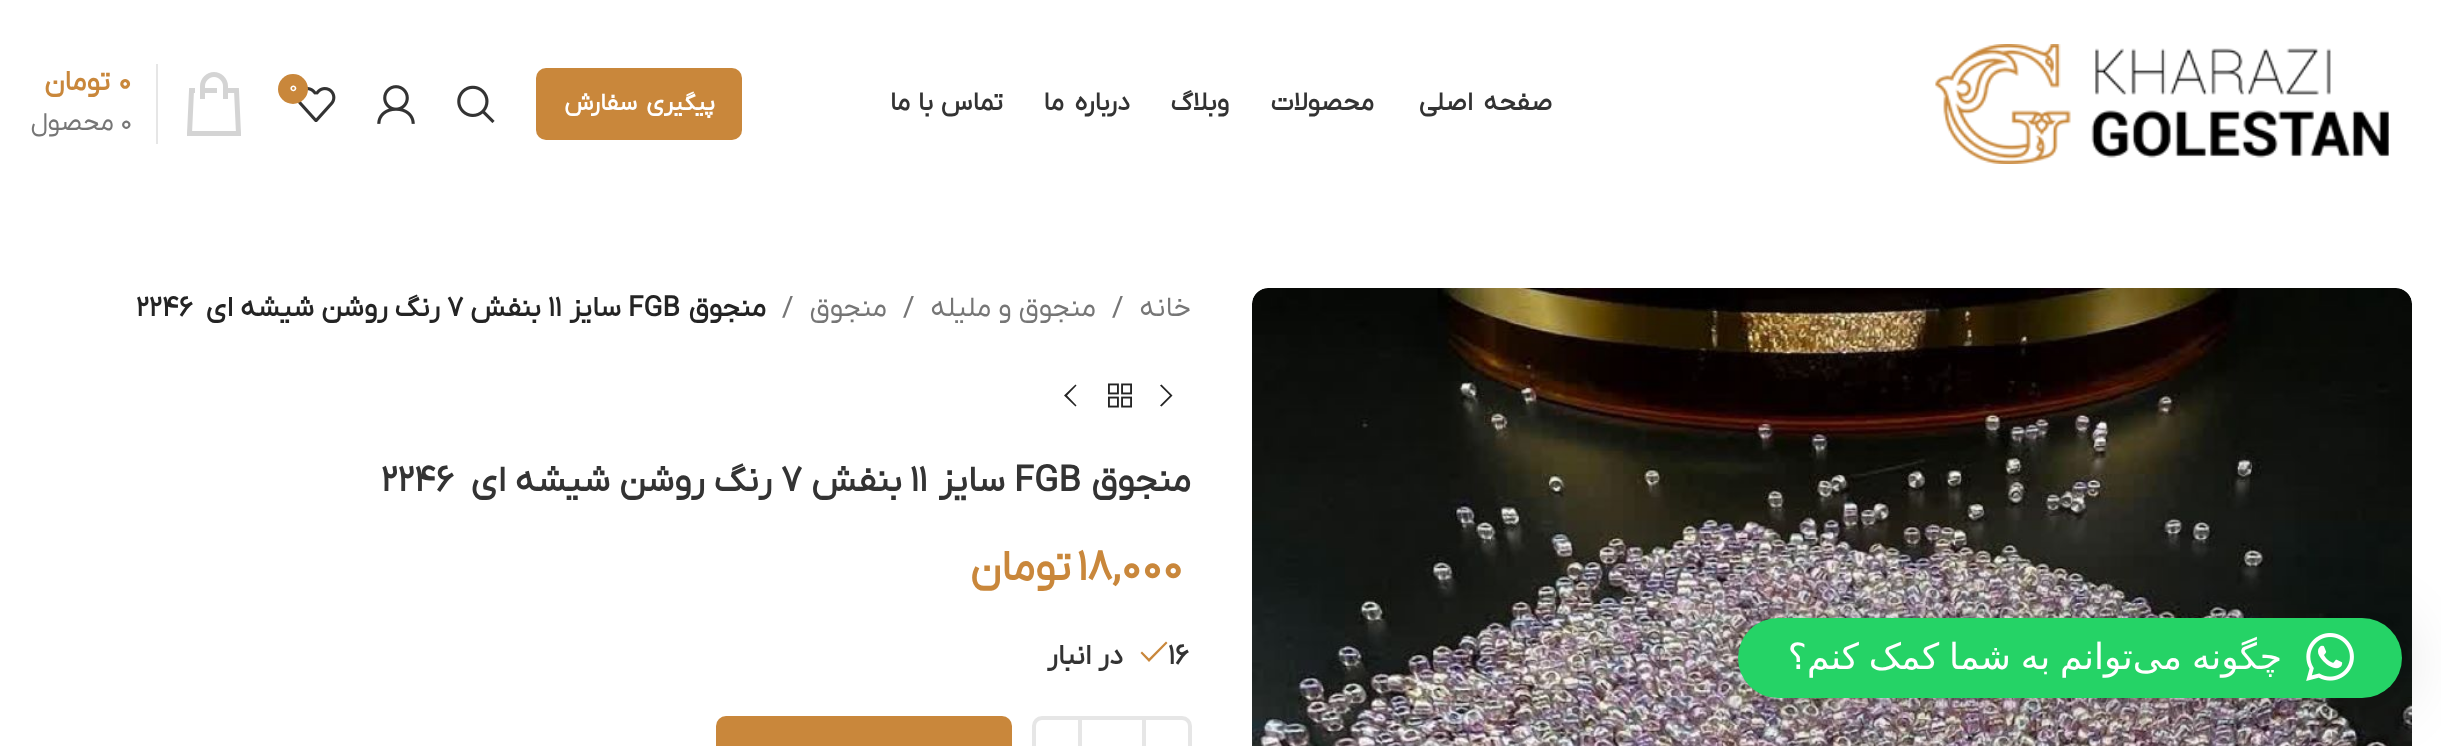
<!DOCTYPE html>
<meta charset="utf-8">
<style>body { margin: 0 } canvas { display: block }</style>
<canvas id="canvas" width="2441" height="746"></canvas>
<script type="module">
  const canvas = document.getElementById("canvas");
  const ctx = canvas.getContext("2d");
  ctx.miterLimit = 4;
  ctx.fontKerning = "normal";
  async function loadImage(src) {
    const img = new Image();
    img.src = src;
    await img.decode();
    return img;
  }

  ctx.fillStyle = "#ffffff";
  ctx.fillRect(0, 0, 2441, 746);
  ctx.drawImage(await loadImage("img7.png"), 1252, 288, 1160, 458);
  ctx.fillStyle = "rgba(0, 0, 0, 0.16)";
  ctx.filter = "blur(32px)";
  ctx.beginPath();
  ctx.roundRect(1738, 622, 664, 80, 40);
  ctx.fill();
  ctx.filter = "none";
  ctx.fillStyle = "rgba(0, 0, 0, 0.06)";
  ctx.filter = "blur(6px)";
  ctx.beginPath();
  ctx.roundRect(1738, 620, 664, 80, 40);
  ctx.fill();
  ctx.filter = "none";
  ctx.fillStyle = "#25d366";
  ctx.beginPath();
  ctx.roundRect(1738, 618, 664, 80, 40);
  ctx.fill();
  ctx.drawImage(await loadImage("img1.png"), 2306, 633, 48, 48);
  ctx.wordSpacing = "-1.5px";
  ctx.direction = "rtl";
  ctx.font = "36px DejaVu Sans";
  ctx.fillStyle = "#ffffff";
  ctx.fillText("چگونه می‌توانم به شما کمک کنم؟", 2282, 669);
  ctx.drawImage(await loadImage("img2.png"), 1935, 44, 454, 120);
  ctx.wordSpacing = "4px";
  ctx.font = "bold 26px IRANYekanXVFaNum";
  ctx.fillStyle = "#333333";
  ctx.fillText("صفحه اصلی", 1552, 110);
  ctx.wordSpacing = "0px";
  ctx.fillText("محصولات", 1374, 110);
  ctx.fillText("وبلاگ", 1229, 110);
  ctx.wordSpacing = "4px";
  ctx.fillText("درباره ما", 1130, 110);
  ctx.wordSpacing = "1px";
  ctx.fillText("تماس با ما", 1003, 110);
  ctx.fillStyle = "#c9873b";
  ctx.beginPath();
  ctx.roundRect(536, 68, 206, 72, 10);
  ctx.fill();
  ctx.wordSpacing = "3px";
  ctx.font = "bold 24px IRANYekanXVFaNum";
  ctx.fillStyle = "#ffffff";
  ctx.fillText("پیگیری سفارش", 715, 110);
  ctx.drawImage(await loadImage("img3.png"), 457, 85, 38, 38);
  ctx.drawImage(await loadImage("img4.png"), 377, 85, 38, 39);
  ctx.drawImage(await loadImage("img5.png"), 298, 87, 38, 35);
  ctx.fillStyle = "#c9873b";
  ctx.beginPath();
  ctx.arc(293, 89, 15, 0, Math.PI * 2);
  ctx.fill();
  ctx.wordSpacing = "0px";
  ctx.direction = "ltr";
  ctx.font = "18px IRANYekanXVFaNum";
  ctx.fillStyle = "#ffffff";
  ctx.fillText("0", 289, 92);
  ctx.drawImage(await loadImage("img6.png"), 187, 72, 54, 64);
  ctx.fillStyle = "#e6e6e6";
  ctx.fillRect(156, 64, 2, 80);
  ctx.font = "bold 28px IRANYekanXVFaNum";
  ctx.fillStyle = "#c9873b";
  ctx.fillText("0", 118, 90);
  ctx.direction = "rtl";
  ctx.fillText("تومان", 110, 90);
  ctx.direction = "ltr";
  ctx.font = "26px IRANYekanXVFaNum";
  ctx.fillStyle = "#767676";
  ctx.fillText("0", 120, 130);
  ctx.direction = "rtl";
  ctx.fillText("محصول", 114, 130);
  ctx.font = "28px IRANYekanXVFaNum";
  ctx.fillText("خانه", 1191, 316);
  ctx.direction = "ltr";
  ctx.fillText("/", 1112, 316);
  ctx.direction = "rtl";
  ctx.fillText("منجوق و ملیله", 1096, 316);
  ctx.direction = "ltr";
  ctx.fillText("/", 903, 316);
  ctx.direction = "rtl";
  ctx.fillText("منجوق", 887, 316);
  ctx.direction = "ltr";
  ctx.fillText("/", 782, 316);
  ctx.direction = "rtl";
  ctx.font = "bold 28px IRANYekanXVFaNum";
  ctx.fillStyle = "#242424";
  ctx.fillText("منجوق", 766, 316);
  ctx.direction = "ltr";
  ctx.fillText("FGB", 628, 316);
  ctx.direction = "rtl";
  ctx.fillText("سایز", 621, 316);
  ctx.direction = "ltr";
  ctx.fillText("11", 548, 316);
  ctx.direction = "rtl";
  ctx.fillText("بنفش", 541, 316);
  ctx.direction = "ltr";
  ctx.fillText("7", 447, 316);
  ctx.direction = "rtl";
  ctx.fillText("رنگ روشن شیشه ای", 440, 316);
  ctx.direction = "ltr";
  ctx.fillText("2246", 136, 316);
  ctx.beginPath();
  ctx.moveTo(1160, 385.5);
  ctx.lineTo(1170, 395.5);
  ctx.lineTo(1160, 405.5);
  ctx.lineTo(1161.5, 406.5);
  ctx.lineTo(1172.5, 395.5);
  ctx.lineTo(1161.5, 384.5);
  ctx.closePath();
  ctx.fill();
  ctx.drawImage(await loadImage("img8.png"), 1108, 383, 24, 25);
  ctx.beginPath();
  ctx.moveTo(1076.5, 385.5);
  ctx.lineTo(1075.5, 384.5);
  ctx.lineTo(1064, 395.5);
  ctx.lineTo(1075.5, 406.5);
  ctx.lineTo(1076.5, 405.5);
  ctx.lineTo(1067, 395.5);
  ctx.closePath();
  ctx.fill();
  ctx.direction = "rtl";
  ctx.font = "bold 36px IRANYekanXVFaNum";
  ctx.fillStyle = "#333333";
  ctx.fillText("منجوق", 1191, 491);
  ctx.direction = "ltr";
  ctx.fillText("FGB", 1014, 491);
  ctx.direction = "rtl";
  ctx.fillText("سایز", 1005, 491);
  ctx.direction = "ltr";
  ctx.fillText("11", 910, 491);
  ctx.direction = "rtl";
  ctx.fillText("بنفش", 902, 491);
  ctx.direction = "ltr";
  ctx.fillText("7", 781, 491);
  ctx.direction = "rtl";
  ctx.fillText("رنگ روشن شیشه ای", 772, 491);
  ctx.direction = "ltr";
  ctx.fillText("2246", 381, 491);
  ctx.font = "bold 43px IRANYekanXVFaNum";
  ctx.fillStyle = "#c9873b";
  ctx.fillText("18,000", 1077, 580);
  ctx.direction = "rtl";
  ctx.fillText("تومان", 1071, 580);
  ctx.direction = "ltr";
  ctx.font = "bold 28px IRANYekanXVFaNum";
  ctx.fillStyle = "#333333";
  ctx.fillText("16", 1168, 664);
  ctx.fillStyle = "#c9873b";
  ctx.beginPath();
  ctx.moveTo(1167.5, 643);
  ctx.lineTo(1166, 641.5);
  ctx.lineTo(1149, 658.5);
  ctx.lineTo(1142, 651.5);
  ctx.lineTo(1140.5, 653);
  ctx.lineTo(1149, 662);
  ctx.closePath();
  ctx.fill();
  ctx.direction = "rtl";
  ctx.fillStyle = "#333333";
  ctx.fillText("در انبار", 1123, 664);
  ctx.beginPath();
  ctx.moveTo(1144, 718);
  ctx.lineTo(1182, 718);
  ctx.bezierCurveTo(1186.5, 718, 1190, 721.5, 1190, 726);
  ctx.lineTo(1190, 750);
  ctx.bezierCurveTo(1190, 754.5, 1186.5, 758, 1182, 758);
  ctx.lineTo(1144, 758);
  ctx.closePath();
  ctx.strokeStyle = "#e6e6e6";
  ctx.lineWidth = 4;
  ctx.stroke();
  ctx.fillStyle = "#e6e6e6";
  ctx.fillRect(1082, 716, 60, 4);
  ctx.beginPath();
  ctx.moveTo(1042, 718);
  ctx.lineTo(1080, 718);
  ctx.lineTo(1080, 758);
  ctx.lineTo(1042, 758);
  ctx.bezierCurveTo(1037.5, 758, 1034, 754.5, 1034, 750);
  ctx.lineTo(1034, 726);
  ctx.bezierCurveTo(1034, 721.5, 1037.5, 718, 1042, 718);
  ctx.closePath();
  ctx.stroke();
  ctx.fillStyle = "#c9873b";
  ctx.beginPath();
  ctx.roundRect(716, 716, 296, 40, 10);
  ctx.fill();
</script>
